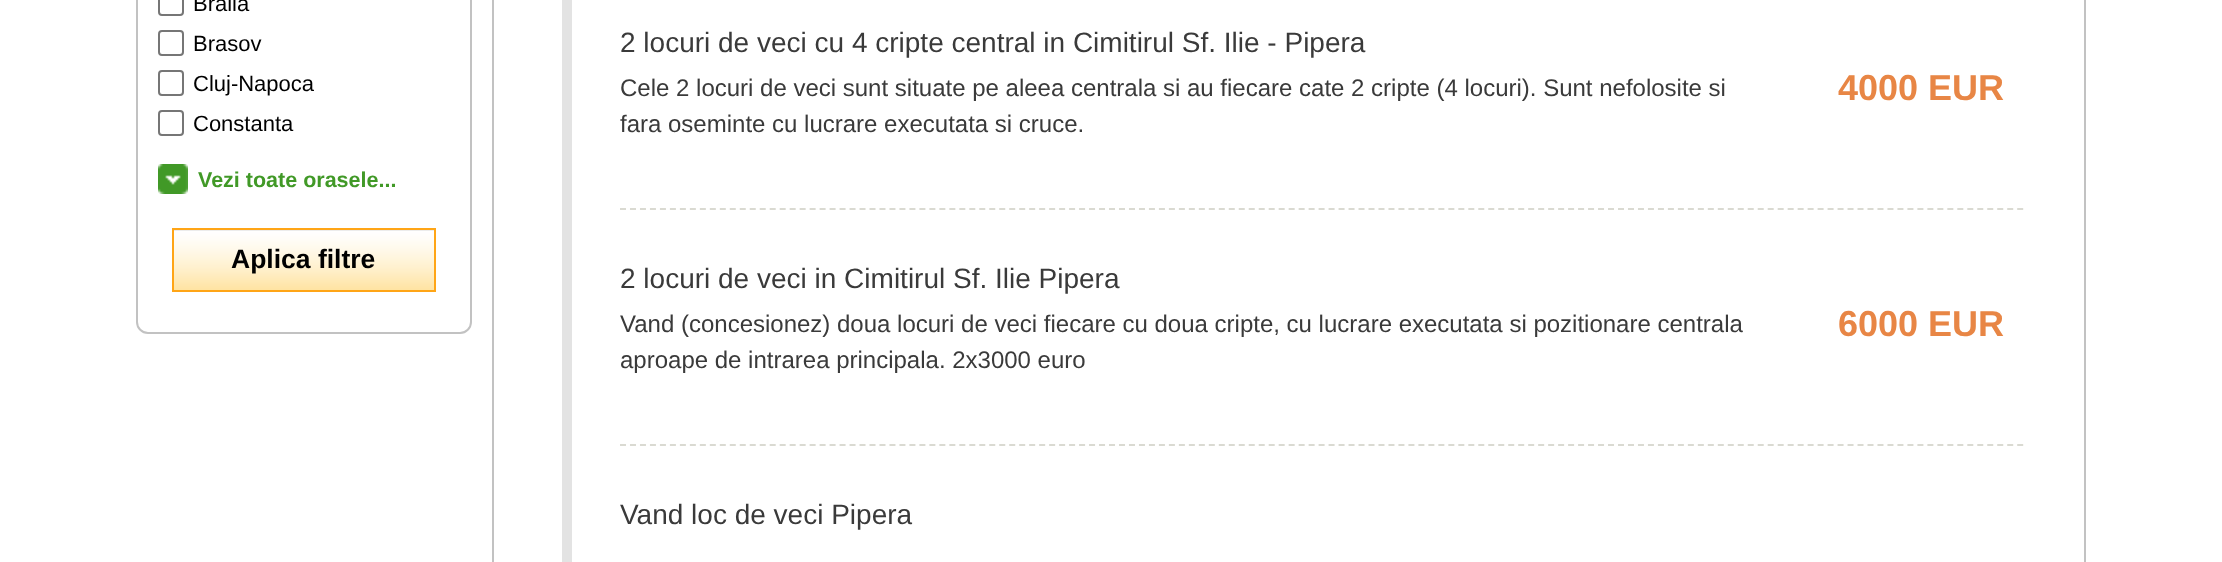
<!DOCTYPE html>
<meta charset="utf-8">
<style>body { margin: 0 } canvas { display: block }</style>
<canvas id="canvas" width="2222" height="562"></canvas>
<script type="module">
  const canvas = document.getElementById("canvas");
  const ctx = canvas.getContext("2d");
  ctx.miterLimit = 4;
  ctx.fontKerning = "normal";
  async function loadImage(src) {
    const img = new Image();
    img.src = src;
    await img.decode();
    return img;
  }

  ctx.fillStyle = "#ffffff";
  ctx.fillRect(0, 0, 2222, 562);
  ctx.beginPath();
  ctx.roundRect(137, -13, 334, 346, 11);
  ctx.strokeStyle = "#c2c2c2";
  ctx.lineWidth = 2;
  ctx.stroke();
  ctx.beginPath();
  ctx.roundRect(159, -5, 24, 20, 3);
  ctx.strokeStyle = "#767676";
  ctx.stroke();
  ctx.font = "22px Liberation Sans";
  ctx.fillStyle = "#000000";
  ctx.fillText("Braila", 193, 11);
  ctx.beginPath();
  ctx.roundRect(159, 31, 24, 24, 3);
  ctx.stroke();
  ctx.fillText("Brasov", 193, 51);
  ctx.beginPath();
  ctx.roundRect(159, 71, 24, 24, 3);
  ctx.stroke();
  ctx.fillText("Cluj-Napoca", 193, 91);
  ctx.beginPath();
  ctx.roundRect(159, 111, 24, 24, 3);
  ctx.stroke();
  ctx.fillText("Constanta", 193, 131);
  ctx.drawImage(await loadImage("img1.png"), 158, 164, 30, 30);
  ctx.font = "bold 21.5px Liberation Sans";
  ctx.fillStyle = "#419927";
  ctx.fillText("Vezi toate orasele...", 198, 187);
  ctx.drawImage(await loadImage("img2.png"), 174, 230, 260, 60);
  ctx.strokeStyle = "#ffa516";
  ctx.strokeRect(173, 229, 262, 62);
  ctx.font = "bold 26.5px Liberation Sans";
  ctx.fillStyle = "#000000";
  ctx.fillText("Aplica filtre", 231, 268);
  ctx.strokeStyle = "#c2c2c2";
  ctx.strokeRect(493, -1, 1592, 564);
  ctx.fillStyle = "#e3e3e3";
  ctx.fillRect(562, 0, 10, 562);
  ctx.font = "28px Liberation Sans";
  ctx.fillStyle = "#3a3a3a";
  ctx.fillText("2 locuri de veci cu 4 cripte central in Cimitirul Sf. Ilie - Pipera", 620, 52);
  ctx.font = "24px Liberation Sans";
  ctx.fillText("Cele 2 locuri de veci sunt situate pe aleea centrala si au fiecare cate 2 cripte (4 locuri). Sunt nefolosite si", 620, 96);
  ctx.fillText("fara oseminte cu lucrare executata si cruce.", 620, 132);
  ctx.font = "bold 36px Liberation Sans";
  ctx.fillStyle = "#e88645";
  ctx.fillText("4000 EUR", 1838, 100);
  ctx.beginPath();
  ctx.moveTo(620, 209);
  ctx.lineTo(2024, 209);
  ctx.strokeStyle = "#dadad2";
  ctx.setLineDash([6, 3.98]);
  ctx.stroke();
  ctx.font = "28px Liberation Sans";
  ctx.fillStyle = "#3a3a3a";
  ctx.fillText("2 locuri de veci in Cimitirul Sf. Ilie Pipera", 620, 288);
  ctx.font = "24px Liberation Sans";
  ctx.fillText("Vand (concesionez) doua locuri de veci fiecare cu doua cripte, cu lucrare executata si pozitionare centrala", 620, 332);
  ctx.fillText("aproape de intrarea principala. 2x3000 euro", 620, 368);
  ctx.font = "bold 36px Liberation Sans";
  ctx.fillStyle = "#e88645";
  ctx.fillText("6000 EUR", 1838, 336);
  ctx.beginPath();
  ctx.moveTo(620, 445);
  ctx.lineTo(2024, 445);
  ctx.stroke();
  ctx.font = "28px Liberation Sans";
  ctx.fillStyle = "#3a3a3a";
  ctx.fillText("Vand loc de veci Pipera", 620, 524);
</script>
